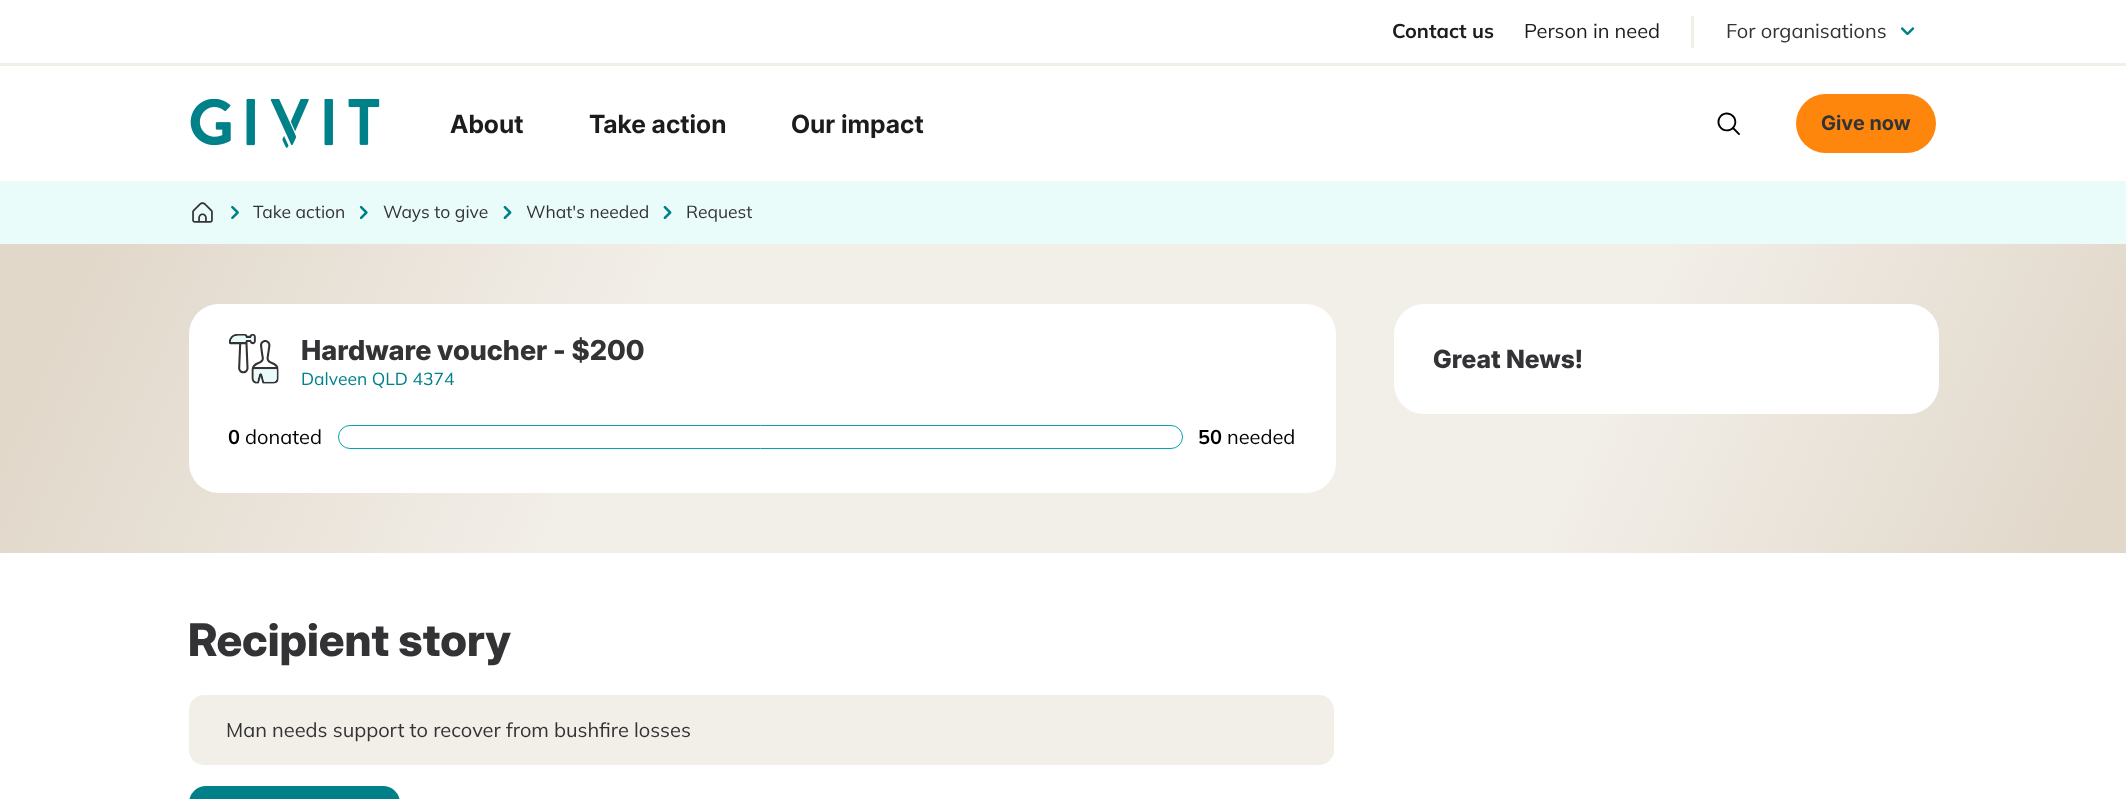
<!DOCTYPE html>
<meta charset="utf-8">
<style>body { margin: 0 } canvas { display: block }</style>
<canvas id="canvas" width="2126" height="799"></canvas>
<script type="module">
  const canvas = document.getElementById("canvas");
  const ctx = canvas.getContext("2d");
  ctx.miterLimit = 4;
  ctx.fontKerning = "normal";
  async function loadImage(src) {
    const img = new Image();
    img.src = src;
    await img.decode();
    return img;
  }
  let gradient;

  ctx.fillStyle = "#ffffff";
  ctx.fillRect(0, 0, 2126, 799);
  ctx.fillStyle = "#f2eee8";
  ctx.fillRect(0, 63, 2126, 3);
  ctx.font = "bold 20px Mulish";
  ctx.fillStyle = "#1c1c1c";
  ctx.fillText("Contact us", 1392, 38);
  ctx.font = "20px Mulish";
  ctx.fillText("Person in need", 1524, 38);
  ctx.fillStyle = "#f2eee8";
  ctx.fillRect(1691, 16, 3, 32);
  ctx.fillStyle = "#333336";
  ctx.fillText("For organisations", 1726, 38);
  ctx.drawImage(await loadImage("img1.png"), 1901, 27, 14, 9);
  ctx.drawImage(await loadImage("img2.png"), 190, 99, 190, 49);
  ctx.font = "bold 25px Inter";
  ctx.fillStyle = "#1c1c1c";
  ctx.fillText("About", 450, 133);
  ctx.fillText("Take action", 589, 133);
  ctx.fillText("Our impact", 791, 133);
  ctx.drawImage(await loadImage("img3.png"), 1717, 112, 23, 23);
  ctx.fillStyle = "#ff860d";
  ctx.beginPath();
  ctx.roundRect(1796, 94, 140, 59, 29.5);
  ctx.fill();
  ctx.font = "bold 20px 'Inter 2'";
  ctx.fillStyle = "#333336";
  ctx.fillText("Give now", 1821, 130);
  ctx.fillStyle = "#e9fcfa";
  ctx.fillRect(0, 181, 2126, 63);
  ctx.drawImage(await loadImage("img4.png"), 192, 202, 21, 21);
  ctx.drawImage(await loadImage("img5.png"), 231, 206, 8, 13);
  ctx.font = "17.5px Mulish";
  ctx.fillStyle = "#333336";
  ctx.fillText("Take action", 253, 218);
  ctx.drawImage(await loadImage("img6.png"), 359, 206, 9, 13);
  ctx.fillText("Ways to give", 383, 218);
  ctx.drawImage(await loadImage("img7.png"), 503, 206, 9, 13);
  ctx.fillText("What's needed", 526, 218);
  ctx.drawImage(await loadImage("img8.png"), 663, 206, 9, 13);
  ctx.fillText("Request", 686, 218);
  gradient = ctx.createLinearGradient(119, -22, 2008, 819);
  gradient.addColorStop(0.04, "#e1d8ca");
  gradient.addColorStop(0.3, "#f2eee8");
  gradient.addColorStop(0.74, "#f2eee8");
  gradient.addColorStop(0.97, "#e1d8ca");
  ctx.fillStyle = gradient;
  ctx.fillRect(0, 244, 2126, 309);
  ctx.fillStyle = "#ffffff";
  ctx.beginPath();
  ctx.roundRect(189, 304, 1147, 189, 30);
  ctx.fill();
  ctx.drawImage(await loadImage("img9.png"), 229, 334, 50, 50);
  ctx.font = "800 27.5px 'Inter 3'";
  ctx.fillStyle = "#333336";
  ctx.fillText("Hardware voucher - $200", 301, 360);
  ctx.font = "17.5px Mulish";
  ctx.fillStyle = "#008189";
  ctx.fillText("Dalveen QLD 4374", 301, 385);
  ctx.font = "bold 20px Mulish";
  ctx.fillStyle = "#000000";
  ctx.fillText("0", 228, 444);
  ctx.font = "20px Mulish";
  ctx.fillText("donated", 245, 444);
  ctx.beginPath();
  ctx.roundRect(338.5, 425.5, 844, 23, 11.5);
  ctx.strokeStyle = "#03a2ae";
  ctx.stroke();
  ctx.font = "bold 20px Mulish";
  ctx.fillText("50", 1198, 444);
  ctx.font = "20px Mulish";
  ctx.fillText("needed", 1227, 444);
  ctx.fillStyle = "#ffffff";
  ctx.beginPath();
  ctx.roundRect(1394, 304, 545, 110, 30);
  ctx.fill();
  ctx.font = "800 25px Inter";
  ctx.fillStyle = "#333336";
  ctx.fillText("Great News!", 1433, 368);
  ctx.font = "800 45px 'Inter 2'";
  ctx.fillText("Recipient story", 188, 656);
  ctx.fillStyle = "#f2eee8";
  ctx.beginPath();
  ctx.roundRect(189, 695, 1145, 70, 15);
  ctx.fill();
  ctx.font = "20px Mulish";
  ctx.fillStyle = "#333336";
  ctx.fillText("Man needs support to recover from bushfire losses", 226, 737);
  ctx.fillStyle = "#008189";
  ctx.beginPath();
  ctx.roundRect(189, 786, 211, 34, 21);
  ctx.fill();
</script>
